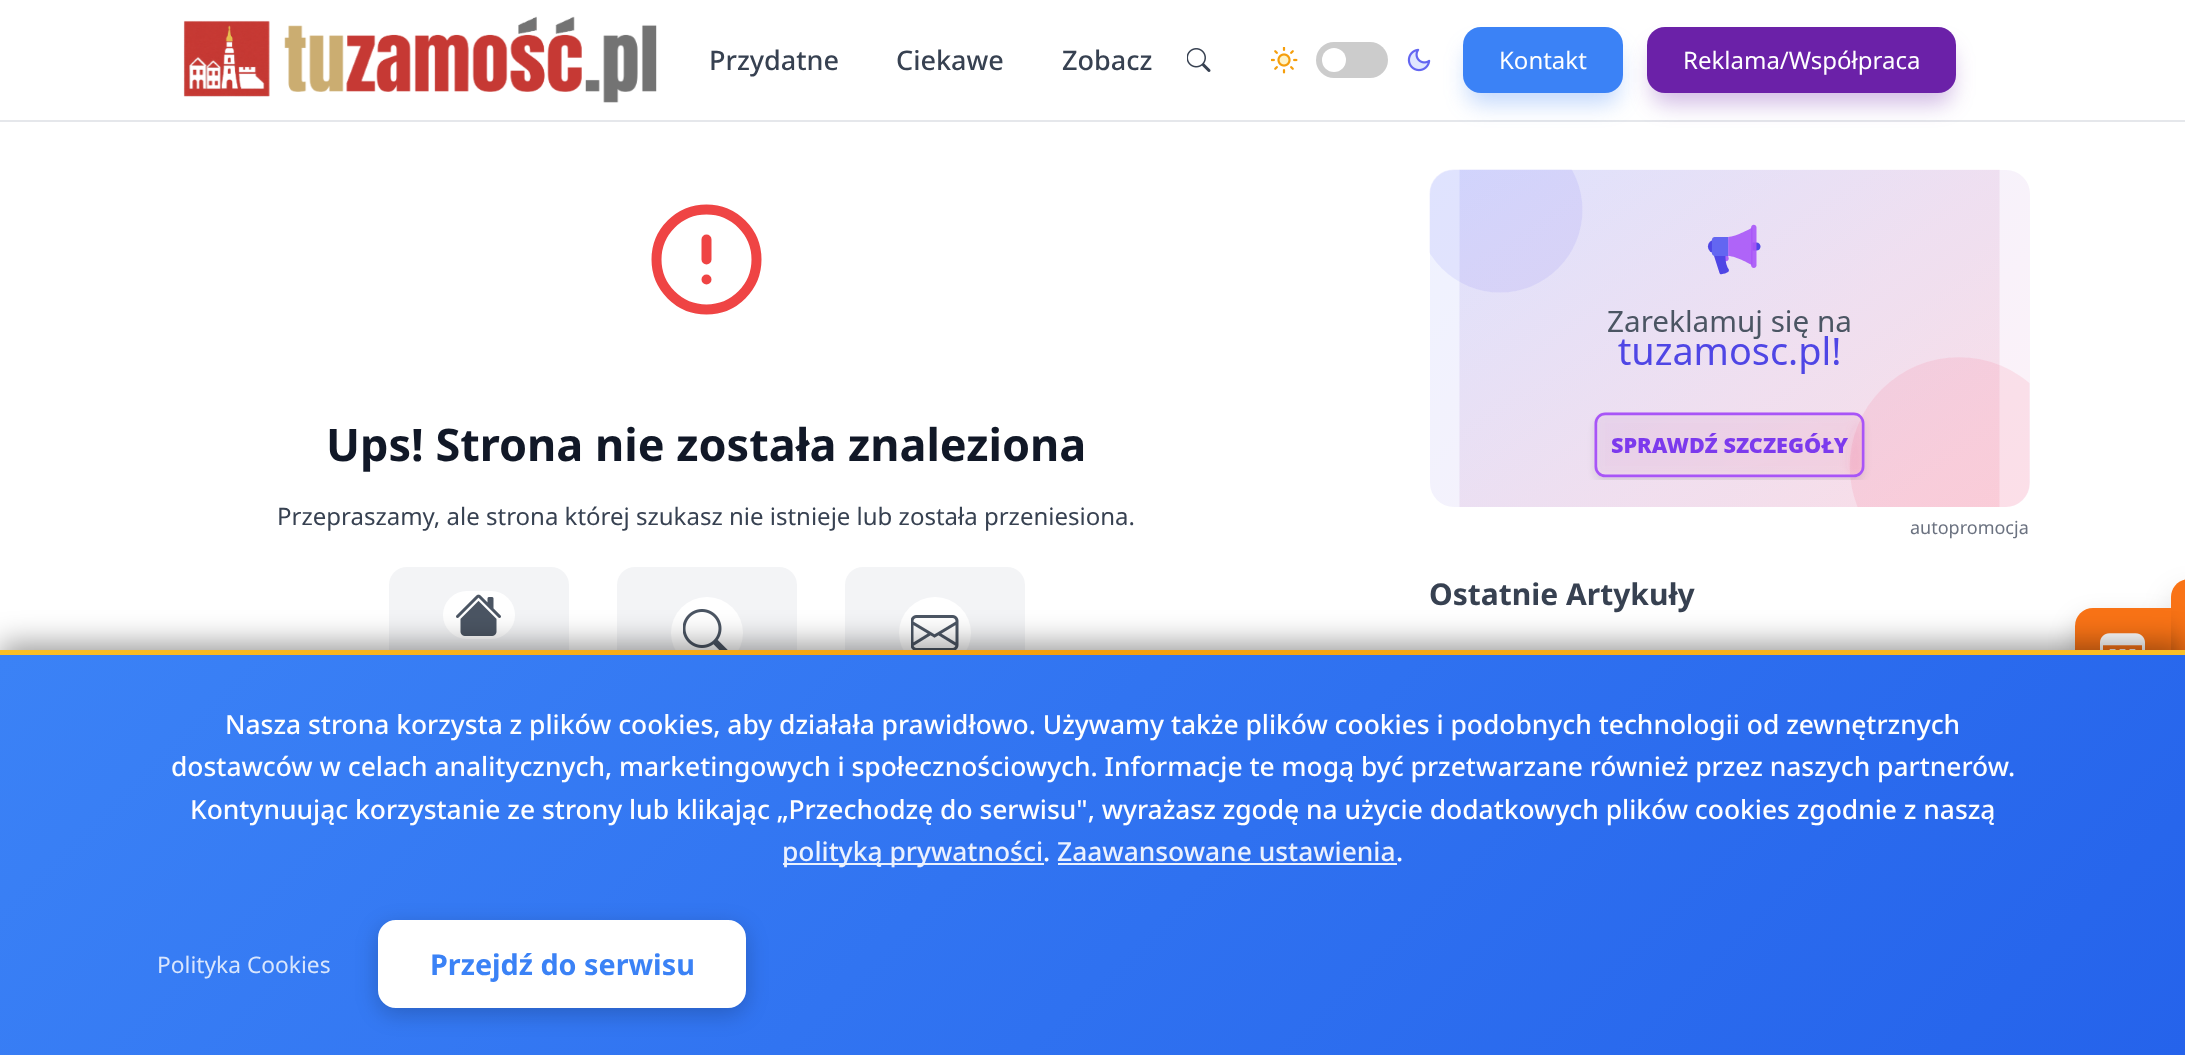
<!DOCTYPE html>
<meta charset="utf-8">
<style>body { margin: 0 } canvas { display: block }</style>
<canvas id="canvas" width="2185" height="1055"></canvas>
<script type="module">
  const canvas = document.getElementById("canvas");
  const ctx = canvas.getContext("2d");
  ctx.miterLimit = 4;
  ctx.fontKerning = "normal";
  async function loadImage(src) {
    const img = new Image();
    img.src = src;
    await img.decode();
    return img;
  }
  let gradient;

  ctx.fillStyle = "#ffffff";
  ctx.fillRect(0, 0, 2185, 1055);
  ctx.fillStyle = "#e5e7eb";
  ctx.fillRect(0, 120, 2185, 2);
  ctx.drawImage(await loadImage("img1.png"), 183, 16, 474, 87);
  ctx.font = "500 27px Noto Sans";
  ctx.fillStyle = "#374151";
  ctx.fillText("Przydatne", 709, 70);
  ctx.fillText("Ciekawe", 896, 70);
  ctx.fillText("Zobacz", 1062, 70);
  ctx.drawImage(await loadImage("img2.png"), 1187, 48, 24, 24);
  ctx.drawImage(await loadImage("img3.png"), 1271, 47, 27, 27);
  ctx.fillStyle = "#cccccc";
  ctx.beginPath();
  ctx.roundRect(1316, 42, 72, 36, 18);
  ctx.fill();
  ctx.fillStyle = "#ffffff";
  ctx.beginPath();
  ctx.arc(1334, 60, 12, 0, Math.PI * 2);
  ctx.fill();
  ctx.drawImage(await loadImage("img4.png"), 1407, 48, 24, 24);
  ctx.fillStyle = "rgba(59, 130, 246, 0.3)";
  ctx.filter = "blur(11px)";
  ctx.beginPath();
  ctx.roundRect(1467, 47, 152, 57, 14);
  ctx.fill();
  ctx.filter = "none";
  ctx.fillStyle = "#3b82f6";
  ctx.beginPath();
  ctx.roundRect(1463, 27, 160, 66, 18);
  ctx.fill();
  ctx.font = "24px Noto Sans";
  ctx.fillStyle = "#ffffff";
  ctx.fillText("Kontakt", 1499, 69);
  ctx.fillStyle = "rgba(107, 33, 168, 0.3)";
  ctx.filter = "blur(11px)";
  ctx.beginPath();
  ctx.roundRect(1652, 47, 300, 57, 14);
  ctx.fill();
  ctx.filter = "none";
  ctx.fillStyle = "#6b21a8";
  ctx.beginPath();
  ctx.roundRect(1647, 27, 309, 66, 18);
  ctx.fill();
  ctx.fillStyle = "#ffffff";
  ctx.fillText("Reklama/Współpraca", 1683, 69);
  ctx.beginPath();
  ctx.arc(706.5, 259.5, 50, 0, Math.PI * 2);
  ctx.strokeStyle = "#ef4444";
  ctx.lineWidth = 10;
  ctx.stroke();
  ctx.beginPath();
  ctx.moveTo(706.5, 239.5);
  ctx.lineTo(706.5, 259.5);
  ctx.moveTo(706.5, 279.5);
  ctx.lineTo(706.5, 279.5);
  ctx.lineCap = "round";
  ctx.lineJoin = "round";
  ctx.stroke();
  ctx.font = "bold 45px Noto Sans";
  ctx.fillStyle = "#111827";
  ctx.fillText("Ups! Strona nie została znaleziona", 326, 461);
  ctx.font = "24px Noto Sans";
  ctx.fillStyle = "#374151";
  ctx.fillText("Przepraszamy, ale strona której szukasz nie istnieje lub została przeniesiona.", 277, 525);
  ctx.fillStyle = "#f3f4f6";
  ctx.beginPath();
  ctx.roundRect(389, 567, 180, 180, 18);
  ctx.fill();
  ctx.fillStyle = "#ffffff";
  ctx.beginPath();
  ctx.roundRect(443, 591, 72, 48, 24);
  ctx.fill();
  ctx.drawImage(await loadImage("img5.png"), 456, 594, 45, 42);
  ctx.fillStyle = "#f3f4f6";
  ctx.beginPath();
  ctx.roundRect(617, 567, 180, 180, 18);
  ctx.fill();
  ctx.fillStyle = "#ffffff";
  ctx.beginPath();
  ctx.arc(707, 633, 36, 0, Math.PI * 2);
  ctx.fill();
  ctx.drawImage(await loadImage("img6.png"), 683, 609, 45, 41);
  ctx.fillStyle = "#f3f4f6";
  ctx.beginPath();
  ctx.roundRect(845, 567, 180, 180, 18);
  ctx.fill();
  ctx.fillStyle = "#ffffff";
  ctx.beginPath();
  ctx.arc(935, 633, 36, 0, Math.PI * 2);
  ctx.fill();
  ctx.drawImage(await loadImage("img7.png"), 911, 615, 48, 35);
  gradient = ctx.createLinearGradient(1495, 104, 1964, 573);
  gradient.addColorStop(0, "#eef2ff");
  gradient.addColorStop(1, "#fdf2f8");
  ctx.fillStyle = gradient;
  ctx.beginPath();
  ctx.roundRect(1430, 170, 600, 337, 24);
  ctx.fill();
  ctx.drawImage(await loadImage("img8.png"), 1429, 169, 601, 338);
  ctx.font = "18px Noto Sans";
  ctx.fillStyle = "#6b7280";
  ctx.fillText("autopromocja", 1910, 534);
  ctx.font = "bold 30px Noto Sans";
  ctx.fillStyle = "#374151";
  ctx.fillText("Ostatnie Artykuły", 1429, 605);
  ctx.fillStyle = "rgba(0, 0, 0, 0.15)";
  ctx.filter = "blur(15px)";
  ctx.beginPath();
  ctx.roundRect(2171, 594, 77, 153, 18);
  ctx.fill();
  ctx.filter = "none";
  ctx.fillStyle = "#f97316";
  ctx.beginPath();
  ctx.moveTo(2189, 579);
  ctx.lineTo(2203, 579);
  ctx.lineTo(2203, 732);
  ctx.lineTo(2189, 732);
  ctx.bezierCurveTo(2179, 732, 2171, 724, 2171, 714);
  ctx.lineTo(2171, 597);
  ctx.bezierCurveTo(2171, 587, 2179, 579, 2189, 579);
  ctx.closePath();
  ctx.fill();
  ctx.fillStyle = "rgba(0, 0, 0, 0.18)";
  ctx.filter = "blur(13.5px)";
  ctx.beginPath();
  ctx.roundRect(2075, 620, 96, 96, 18);
  ctx.fill();
  ctx.filter = "none";
  ctx.fillStyle = "#f97316";
  ctx.beginPath();
  ctx.roundRect(2075, 608, 96, 96, [18, 0, 0, 18]);
  ctx.fill();
  ctx.drawImage(await loadImage("img9.png"), 2100, 633, 45, 17);
  ctx.fillStyle = "rgba(0, 0, 0, 0.4)";
  ctx.filter = "blur(15px)";
  ctx.beginPath();
  ctx.rect(0, 644, 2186, 406);
  ctx.fill();
  ctx.filter = "none";
  gradient = ctx.createLinearGradient(446, 208, 1740, 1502);
  gradient.addColorStop(0, "#3b82f6");
  gradient.addColorStop(1, "#2563eb");
  ctx.fillStyle = gradient;
  ctx.fillRect(0, 655, 2185, 400);
  gradient = ctx.createLinearGradient(446, 208, 1740, 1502);
  gradient.addColorStop(0, "#ebf3fe");
  gradient.addColorStop(1, "#e9effd");
  ctx.fillStyle = gradient;
  ctx.fillRect(1058, 863, 339, 2);
  ctx.fillRect(783, 863, 261, 2);
  gradient = ctx.createLinearGradient(0, 652, 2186, 652);
  gradient.addColorStop(0, "#fbbf24");
  gradient.addColorStop(0.5, "#f59e0b");
  gradient.addColorStop(1, "#fbbf24");
  ctx.fillStyle = gradient;
  ctx.fillRect(0, 650, 2185, 5);
  ctx.font = "500 26.4px Noto Sans";
  ctx.fillStyle = "#ffffff";
  ctx.fillText("Nasza strona korzysta z plików cookies, aby działała prawidłowo. Używamy także plików cookies i podobnych technologii od zewnętrznych", 225, 734);
  ctx.fillText("dostawców w celach analitycznych, marketingowych i społecznościowych. Informacje te mogą być przetwarzane również przez naszych partnerów.", 171, 776);
  ctx.fillText("Kontynuując korzystanie ze strony lub klikając „Przechodzę do serwisu\", wyrażasz zgodę na użycie dodatkowych plików cookies zgodnie z naszą", 190, 819);
  ctx.fillStyle = "#ebf1fe";
  ctx.fillText("polityką prywatności", 782, 861);
  ctx.fillStyle = "#ffffff";
  ctx.fillText(".", 1043, 861);
  ctx.fillStyle = "#ebf1fe";
  ctx.fillText("Zaawansowane ustawienia", 1057, 861);
  ctx.fillStyle = "#ffffff";
  ctx.fillText(".", 1396, 861);
  ctx.font = "22.75px Noto Sans";
  ctx.fillStyle = "#d9e6fd";
  ctx.fillText("Polityka Cookies", 157, 973);
  ctx.fillStyle = "rgba(0, 0, 0, 0.2)";
  ctx.filter = "blur(11px)";
  ctx.beginPath();
  ctx.roundRect(378, 926, 368, 88, 18);
  ctx.fill();
  ctx.filter = "none";
  ctx.fillStyle = "#ffffff";
  ctx.beginPath();
  ctx.roundRect(379.5, 921.5, 365, 85, 16.5);
  ctx.fill();
  ctx.strokeStyle = "#ffffff";
  ctx.lineWidth = 3;
  ctx.lineJoin = "miter";
  ctx.stroke();
  ctx.font = "bold 28.75px Noto Sans";
  ctx.fillStyle = "#3b82f6";
  ctx.fillText("Przejdź do serwisu", 430, 975);
</script>
